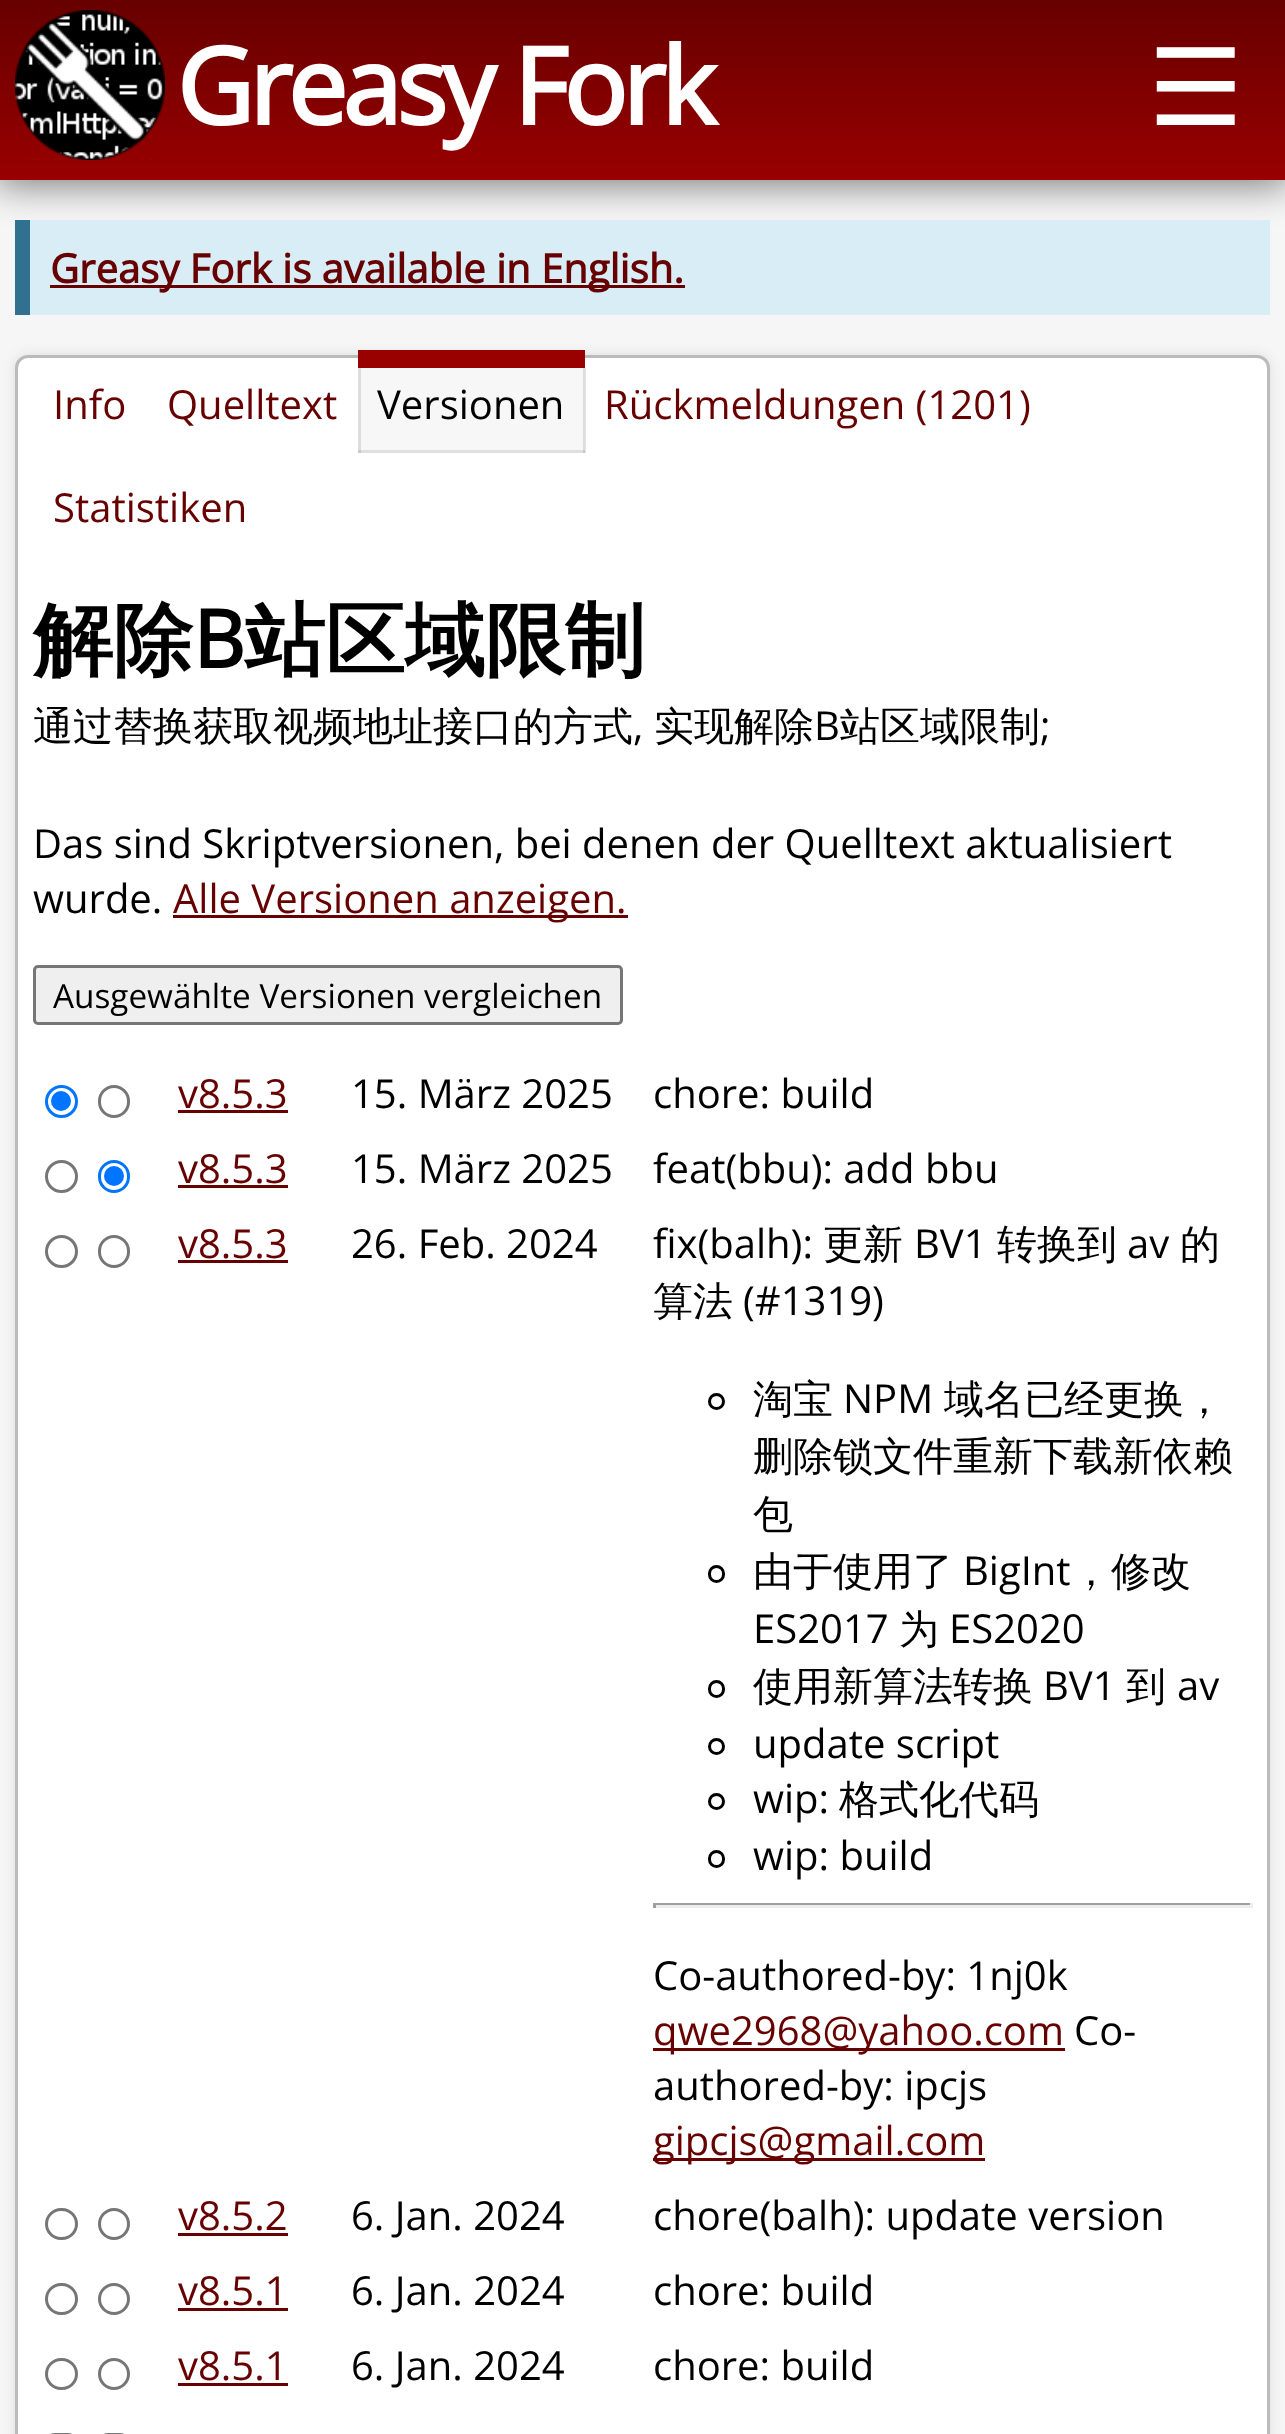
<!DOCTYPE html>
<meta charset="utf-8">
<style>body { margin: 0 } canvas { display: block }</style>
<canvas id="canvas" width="1285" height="2434"></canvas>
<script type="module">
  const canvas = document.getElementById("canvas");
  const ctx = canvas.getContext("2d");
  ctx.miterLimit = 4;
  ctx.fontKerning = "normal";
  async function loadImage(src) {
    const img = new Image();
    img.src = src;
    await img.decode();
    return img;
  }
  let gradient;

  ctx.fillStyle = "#f6f6f6";
  ctx.fillRect(0, 0, 1285, 2434);
  ctx.fillStyle = "rgba(0, 0, 0, 0.5)";
  ctx.filter = "blur(19px)";
  ctx.beginPath();
  ctx.rect(-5, -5, 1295, 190);
  ctx.fill();
  ctx.filter = "none";
  gradient = ctx.createLinearGradient(643, 0, 643, 180);
  gradient.addColorStop(0, "#670000");
  gradient.addColorStop(1, "#990000");
  ctx.fillStyle = gradient;
  ctx.fillRect(0, 0, 1285, 180);
  ctx.drawImage(await loadImage("img1.png"), 15, 10, 150, 150);
  ctx.letterSpacing = "-5px";
  ctx.font = "bold 106.5px Open Sans";
  ctx.fillStyle = "#ffffff";
  ctx.fillText("Greasy Fork", 176, 125);
  ctx.letterSpacing = "0px";
  ctx.font = "106.5px DejaVu Sans";
  ctx.fillText("☰", 1148, 125);
  ctx.fillStyle = "#d9edf7";
  ctx.fillRect(30, 220, 1240, 95);
  ctx.fillStyle = "#31708f";
  ctx.fillRect(15, 220, 15, 95);
  ctx.fillStyle = "#670000";
  ctx.fillRect(50, 285, 635, 3);
  ctx.font = "bold 40px Open Sans";
  ctx.fillText("Greasy Fork is available in English.", 50, 283);
  ctx.fillStyle = "#dddddd";
  ctx.filter = "blur(6px)";
  ctx.beginPath();
  ctx.roundRect(15, 355, 1255, 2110, 13);
  ctx.fill();
  ctx.filter = "none";
  ctx.fillStyle = "#ffffff";
  ctx.beginPath();
  ctx.roundRect(16.5, 356.5, 1252, 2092, 11.5);
  ctx.fill();
  ctx.strokeStyle = "#bbbbbb";
  ctx.lineWidth = 3;
  ctx.stroke();
  ctx.font = "40px Open Sans";
  ctx.fillStyle = "#670000";
  ctx.fillText("Info", 53, 419);
  ctx.fillText("Quelltext", 167, 419);
  ctx.fillStyle = "rgba(0, 0, 0, 0.03)";
  ctx.fillRect(358, 368, 227, 82);
  ctx.fillStyle = "#dfdfdf";
  ctx.fillRect(358, 450, 227, 3);
  ctx.fillStyle = "rgba(0, 0, 0, 0.1)";
  ctx.fillRect(583, 368, 3, 85);
  ctx.fillRect(358, 368, 3, 85);
  ctx.fillStyle = "#990000";
  ctx.fillRect(358, 350, 227, 18);
  ctx.fillStyle = "#000000";
  ctx.fillText("Versionen", 377, 419);
  ctx.fillStyle = "#670000";
  ctx.fillText("Rückmeldungen (1201)", 604, 419);
  ctx.fillText("Statistiken", 53, 522);
  ctx.font = "bold 80px WenQuanYi Zen Hei";
  ctx.fillStyle = "#000000";
  ctx.fillText("解除", 33, 668);
  ctx.font = "bold 80px Open Sans";
  ctx.fillText("B", 193, 668);
  ctx.font = "bold 80px WenQuanYi Zen Hei";
  ctx.fillText("站区域限制", 245, 668);
  ctx.font = "500 40px WenQuanYi Zen Hei";
  ctx.fillText("通过替换获取视频地址接口的方式", 33, 740);
  ctx.font = "40px Open Sans";
  ctx.fillText(",", 633, 740);
  ctx.font = "500 40px WenQuanYi Zen Hei";
  ctx.fillText("实现解除", 654, 740);
  ctx.font = "40px Open Sans";
  ctx.fillText("B", 814, 740);
  ctx.font = "500 40px WenQuanYi Zen Hei";
  ctx.fillText("站区域限制", 840, 740);
  ctx.font = "40px Open Sans";
  ctx.fillText(";", 1040, 740);
  ctx.fillText("Das sind Skriptversionen, bei denen der Quelltext aktualisiert", 33, 858);
  ctx.fillText("wurde.", 33, 913);
  ctx.fillStyle = "#670000";
  ctx.fillRect(173, 915, 455, 3);
  ctx.fillText("Alle Versionen anzeigen.", 173, 913);
  ctx.fillStyle = "#efefef";
  ctx.beginPath();
  ctx.roundRect(34.5, 966.5, 587, 57, 3.5);
  ctx.fill();
  ctx.strokeStyle = "#767676";
  ctx.stroke();
  ctx.font = "33.3px Open Sans";
  ctx.fillStyle = "#000000";
  ctx.fillText("Ausgewählte Versionen vergleichen", 53, 1008);
  ctx.beginPath();
  ctx.arc(61.5, 1101.5, 15, 0, Math.PI * 2);
  ctx.strokeStyle = "#0075ff";
  ctx.stroke();
  ctx.fillStyle = "#0075ff";
  ctx.beginPath();
  ctx.arc(61, 1101, 10, 0, Math.PI * 2);
  ctx.fill();
  ctx.beginPath();
  ctx.roundRect(99.5, 1086.5, 29, 30, 14.5);
  ctx.strokeStyle = "#767676";
  ctx.stroke();
  ctx.font = "40px Open Sans";
  ctx.fillStyle = "#670000";
  ctx.fillText("v8.5.3", 178, 1108);
  ctx.fillRect(178, 1110, 110, 3);
  ctx.fillStyle = "#000000";
  ctx.fillText("15. März 2025", 351, 1108);
  ctx.fillText("chore: build", 653, 1108);
  ctx.beginPath();
  ctx.arc(61.5, 1176.5, 15, 0, Math.PI * 2);
  ctx.stroke();
  ctx.beginPath();
  ctx.roundRect(99.5, 1161.5, 29, 30, 14.5);
  ctx.strokeStyle = "#0075ff";
  ctx.stroke();
  ctx.fillStyle = "#0075ff";
  ctx.beginPath();
  ctx.arc(114, 1176, 10, 0, Math.PI * 2);
  ctx.fill();
  ctx.fillStyle = "#670000";
  ctx.fillText("v8.5.3", 178, 1183);
  ctx.fillRect(178, 1185, 110, 3);
  ctx.fillStyle = "#000000";
  ctx.fillText("15. März 2025", 351, 1183);
  ctx.fillText("feat(bbu): add bbu", 653, 1183);
  ctx.beginPath();
  ctx.arc(61.5, 1251.5, 15, 0, Math.PI * 2);
  ctx.strokeStyle = "#767676";
  ctx.stroke();
  ctx.beginPath();
  ctx.roundRect(99.5, 1236.5, 29, 30, 14.5);
  ctx.stroke();
  ctx.fillStyle = "#670000";
  ctx.fillText("v8.5.3", 178, 1258);
  ctx.fillRect(178, 1260, 110, 3);
  ctx.fillStyle = "#000000";
  ctx.fillText("26. Feb. 2024", 351, 1258);
  ctx.fillText("fix(balh):", 653, 1258);
  ctx.font = "500 40px WenQuanYi Zen Hei";
  ctx.fillText("更新", 823, 1258);
  ctx.font = "40px Open Sans";
  ctx.fillText("BV1", 914, 1258);
  ctx.font = "500 40px WenQuanYi Zen Hei";
  ctx.fillText("转换到", 997, 1258);
  ctx.font = "40px Open Sans";
  ctx.fillText("av", 1127, 1258);
  ctx.font = "500 40px WenQuanYi Zen Hei";
  ctx.fillText("的", 1180, 1258);
  ctx.fillText("算法", 653, 1315);
  ctx.font = "40px Open Sans";
  ctx.fillText("(#1319)", 743, 1315);
  ctx.beginPath();
  ctx.arc(716.5, 1401.5, 7, 0, Math.PI * 2);
  ctx.strokeStyle = "#000000";
  ctx.stroke();
  ctx.font = "500 40px WenQuanYi Zen Hei";
  ctx.fillText("淘宝", 753, 1413);
  ctx.font = "40px Open Sans";
  ctx.fillText("NPM", 843, 1413);
  ctx.font = "500 40px WenQuanYi Zen Hei";
  ctx.fillText("域名已经更换，", 944, 1413);
  ctx.fillText("删除锁文件重新下载新依赖", 753, 1470);
  ctx.fillText("包", 753, 1528);
  ctx.beginPath();
  ctx.roundRect(709.5, 1566.5, 14, 15, 7);
  ctx.stroke();
  ctx.fillText("由于使用了", 753, 1585);
  ctx.font = "40px Open Sans";
  ctx.fillText("BigInt", 963, 1585);
  ctx.font = "500 40px WenQuanYi Zen Hei";
  ctx.fillText("，修改", 1071, 1585);
  ctx.font = "40px Open Sans";
  ctx.fillText("ES2017", 753, 1643);
  ctx.font = "500 40px WenQuanYi Zen Hei";
  ctx.fillText("为", 899, 1643);
  ctx.font = "40px Open Sans";
  ctx.fillText("ES2020", 949, 1643);
  ctx.beginPath();
  ctx.roundRect(709.5, 1681.5, 14, 15, 7);
  ctx.stroke();
  ctx.font = "500 40px WenQuanYi Zen Hei";
  ctx.fillText("使用新算法转换", 753, 1700);
  ctx.font = "40px Open Sans";
  ctx.fillText("BV1", 1043, 1700);
  ctx.font = "500 40px WenQuanYi Zen Hei";
  ctx.fillText("到", 1126, 1700);
  ctx.font = "40px Open Sans";
  ctx.fillText("av", 1177, 1700);
  ctx.beginPath();
  ctx.arc(716.5, 1746.5, 7, 0, Math.PI * 2);
  ctx.stroke();
  ctx.fillText("update script", 753, 1758);
  ctx.beginPath();
  ctx.arc(716.5, 1801.5, 7, 0, Math.PI * 2);
  ctx.stroke();
  ctx.fillText("wip:", 753, 1813);
  ctx.font = "500 40px WenQuanYi Zen Hei";
  ctx.fillText("格式化代码", 839, 1813);
  ctx.beginPath();
  ctx.roundRect(709.5, 1851.5, 14, 15, 7);
  ctx.stroke();
  ctx.font = "40px Open Sans";
  ctx.fillText("wip: build", 753, 1870);
  ctx.fillStyle = "#9f9f9f";
  ctx.fillRect(653, 1903, 600, 2);
  ctx.fillStyle = "#eeeeee";
  ctx.fillRect(1250, 1903, 3, 5);
  ctx.fillRect(653, 1905, 600, 3);
  ctx.fillStyle = "#9f9f9f";
  ctx.fillRect(653, 1903, 3, 5);
  ctx.fillStyle = "#000000";
  ctx.fillText("Co-authored-by: 1nj0k", 653, 1990);
  ctx.fillStyle = "#670000";
  ctx.fillRect(653, 2048, 412, 3);
  ctx.fillText("qwe2968@yahoo.com", 653, 2045);
  ctx.fillStyle = "#000000";
  ctx.fillText("Co-", 1074, 2045);
  ctx.fillText("authored-by: ipcjs", 653, 2100);
  ctx.fillStyle = "#670000";
  ctx.fillRect(653, 2158, 332, 3);
  ctx.fillText("gipcjs@gmail.com", 653, 2155);
  ctx.beginPath();
  ctx.roundRect(46.5, 2209.5, 30, 29, 14.5);
  ctx.strokeStyle = "#767676";
  ctx.stroke();
  ctx.beginPath();
  ctx.arc(114, 2224, 14.5, 0, Math.PI * 2);
  ctx.stroke();
  ctx.fillText("v8.5.2", 178, 2230);
  ctx.fillRect(178, 2233, 110, 3);
  ctx.fillStyle = "#000000";
  ctx.fillText("6. Jan. 2024", 351, 2230);
  ctx.fillText("chore(balh): update version", 653, 2230);
  ctx.beginPath();
  ctx.roundRect(46.5, 2284.5, 30, 29, 14.5);
  ctx.stroke();
  ctx.beginPath();
  ctx.arc(114, 2299, 14.5, 0, Math.PI * 2);
  ctx.stroke();
  ctx.fillStyle = "#670000";
  ctx.fillText("v8.5.1", 178, 2305);
  ctx.fillRect(178, 2308, 110, 3);
  ctx.fillStyle = "#000000";
  ctx.fillText("6. Jan. 2024", 351, 2305);
  ctx.fillText("chore: build", 653, 2305);
  ctx.beginPath();
  ctx.roundRect(46.5, 2359.5, 30, 29, 14.5);
  ctx.stroke();
  ctx.beginPath();
  ctx.arc(114, 2374, 14.5, 0, Math.PI * 2);
  ctx.stroke();
  ctx.fillStyle = "#670000";
  ctx.fillText("v8.5.1", 178, 2380);
  ctx.fillRect(178, 2383, 110, 3);
  ctx.fillStyle = "#000000";
  ctx.fillText("6. Jan. 2024", 351, 2380);
  ctx.fillText("chore: build", 653, 2380);
  ctx.beginPath();
  ctx.roundRect(46.5, 2434.5, 30, 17, 14.5);
  ctx.stroke();
  ctx.beginPath();
  ctx.roundRect(99.5, 2434.5, 29, 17, 14.5);
  ctx.stroke();
</script>
